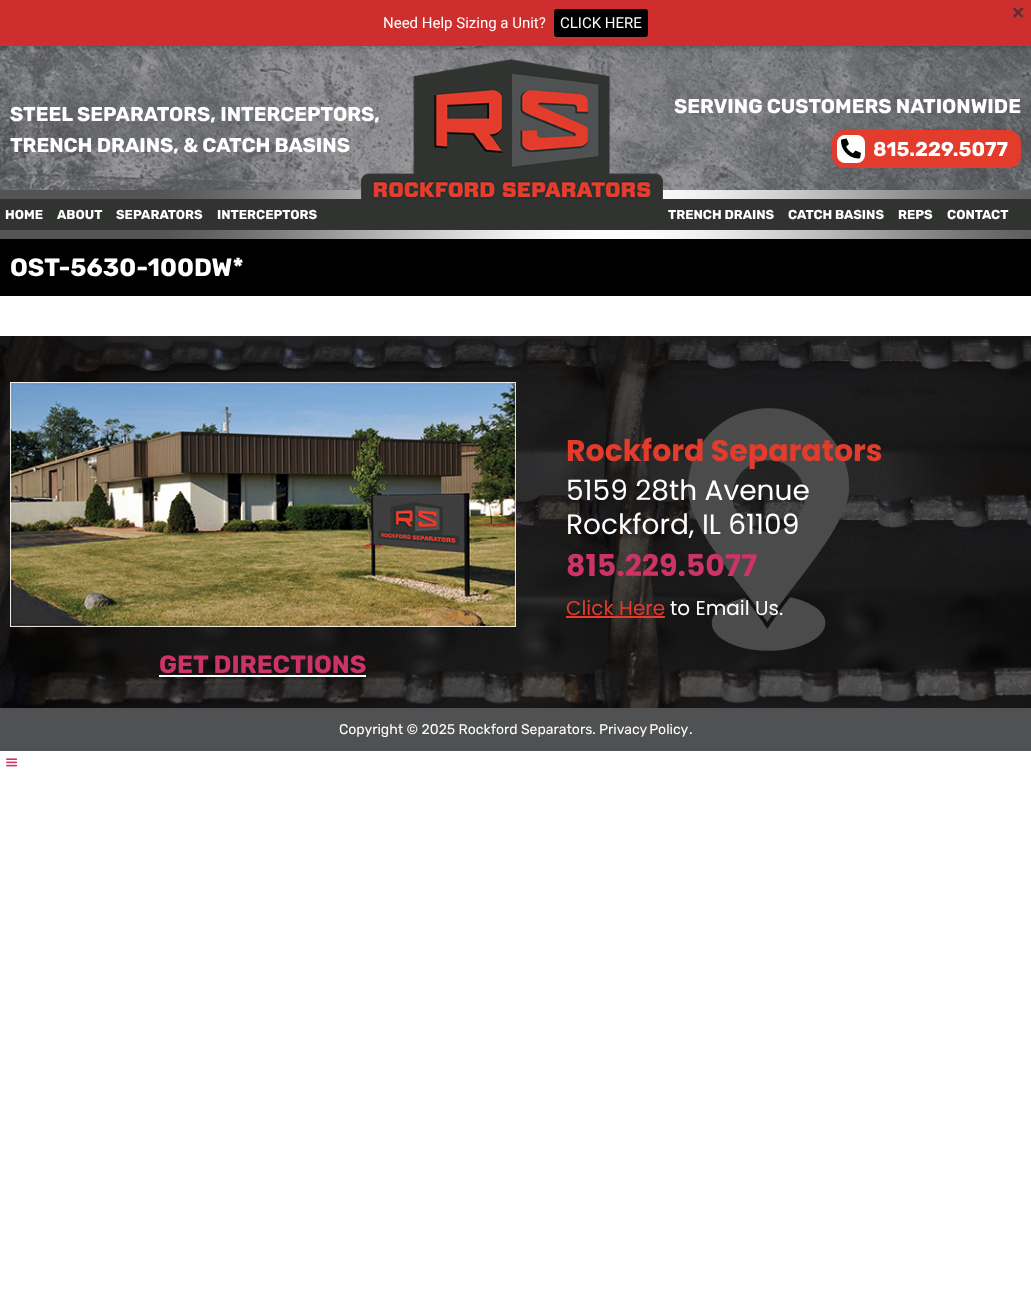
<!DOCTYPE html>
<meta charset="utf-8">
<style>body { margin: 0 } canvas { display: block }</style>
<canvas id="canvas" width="1031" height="1289"></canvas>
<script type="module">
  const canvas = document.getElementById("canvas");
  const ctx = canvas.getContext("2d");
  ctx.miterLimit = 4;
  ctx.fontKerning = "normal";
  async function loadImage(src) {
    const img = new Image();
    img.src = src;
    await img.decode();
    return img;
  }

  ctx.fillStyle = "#ffffff";
  ctx.fillRect(0, 0, 1031, 1289);
  ctx.drawImage(await loadImage("img2.png"), 0, 46, 1031, 144);
  ctx.font = "bold 20px Rubik";
  ctx.fillText("STEEL SEPARATORS, INTERCEPTORS,", 10, 121);
  ctx.drawImage(await loadImage("img4.png"), 0, 190, 1031, 9);
  ctx.drawImage(await loadImage("img5.png"), 361, 59, 302, 140);
  ctx.fillStyle = "rgba(0, 0, 0, 0.35)";
  ctx.filter = "blur(5px)";
  ctx.beginPath();
  ctx.rect(0, 0, 1031, 46);
  ctx.fill();
  ctx.filter = "none";
  ctx.fillStyle = "#cf2e2e";
  ctx.fillRect(0, 0, 1031, 46);
  ctx.drawImage(await loadImage("img1.png"), 1012, 6, 13, 13);
  ctx.font = "15px Roboto";
  ctx.fillStyle = "#ffffff";
  ctx.fillText("Need Help Sizing a Unit?", 383, 28);
  ctx.fillStyle = "#000000";
  ctx.beginPath();
  ctx.roundRect(554, 9, 94, 28, 3);
  ctx.fill();
  ctx.fillStyle = "#ffffff";
  ctx.fillText("CLICK HERE", 560, 28);
  ctx.font = "bold 20px Rubik";
  ctx.fillText("TRENCH DRAINS, & CATCH BASINS", 10, 152);
  ctx.fillText("SERVING CUSTOMERS NATIONWIDE", 674, 113);
  ctx.fillStyle = "#e33c2c";
  ctx.beginPath();
  ctx.roundRect(832.5, 130.5, 188, 37, 11.5);
  ctx.fill();
  ctx.strokeStyle = "#e33c2c";
  ctx.stroke();
  ctx.fillStyle = "#ffffff";
  ctx.beginPath();
  ctx.roundRect(837, 135, 28, 28, 8);
  ctx.fill();
  ctx.drawImage(await loadImage("img3.png"), 841, 138, 20, 21);
  ctx.fillText("815.229.5077", 873, 156);
  ctx.fillStyle = "#313331";
  ctx.fillRect(0, 199, 1031, 31);
  ctx.font = "bold 13px Rubik";
  ctx.fillStyle = "#ffffff";
  ctx.fillText("HOME", 5, 219);
  ctx.fillText("ABOUT", 57, 219);
  ctx.fillText("SEPARATORS", 116, 219);
  ctx.fillText("INTERCEPTORS", 217, 219);
  ctx.fillText("TRENCH DRAINS", 668, 219);
  ctx.fillText("CATCH BASINS", 788, 219);
  ctx.fillText("REPS", 898, 219);
  ctx.fillText("CONTACT", 947, 219);
  ctx.drawImage(await loadImage("img4.png"), 0, 230, 1031, 9);
  ctx.fillStyle = "#000000";
  ctx.fillRect(0, 239, 1031, 57);
  ctx.font = "bold 25px Rubik";
  ctx.fillStyle = "#ffffff";
  ctx.fillText("OST-5630-100DW*", 10, 276);
  ctx.drawImage(await loadImage("img6.png"), 0, 336, 1031, 372);
  ctx.drawImage(await loadImage("img7.png"), 688, 408, 161, 243);
  ctx.font = "bold 30px Poppins";
  ctx.fillStyle = "#e33c2c";
  ctx.fillText("Rockford Separators", 566, 461);
  ctx.font = "28px Poppins";
  ctx.fillStyle = "#ffffff";
  ctx.fillText("5159 28th Avenue", 566, 500);
  ctx.fillText("Rockford, IL 61109", 566, 534);
  ctx.font = "bold 30px Poppins";
  ctx.fillStyle = "#cc3366";
  ctx.fillText("815.229.5077", 566, 576);
  ctx.font = "20px Poppins";
  ctx.fillStyle = "#e33c2c";
  ctx.fillText("Click Here", 566, 615);
  ctx.fillRect(566, 616, 99, 2);
  ctx.fillStyle = "#ffffff";
  ctx.fillText("to Email Us.", 670, 615);
  ctx.drawImage(await loadImage("img8.png"), 10, 382, 506, 245);
  ctx.font = "bold 25px Rubik";
  ctx.fillStyle = "#cc3366";
  ctx.fillText("GET DIRECTIONS", 159, 673);
  ctx.fillStyle = "#ffffff";
  ctx.fillRect(159, 675, 207, 2);
  ctx.fillStyle = "#505152";
  ctx.fillRect(0, 708, 1031, 43);
  ctx.font = "14px Rubik";
  ctx.fillStyle = "#ffffff";
  ctx.fillText("Copyright © 2025 Rockford Separators.", 339, 734);
  ctx.wordSpacing = "-1px";
  ctx.fillText("Privacy Policy", 599, 734);
  ctx.wordSpacing = "0px";
  ctx.fillText(".", 689, 734);
  ctx.drawImage(await loadImage("img9.png"), 6, 758, 12, 9);
</script>
